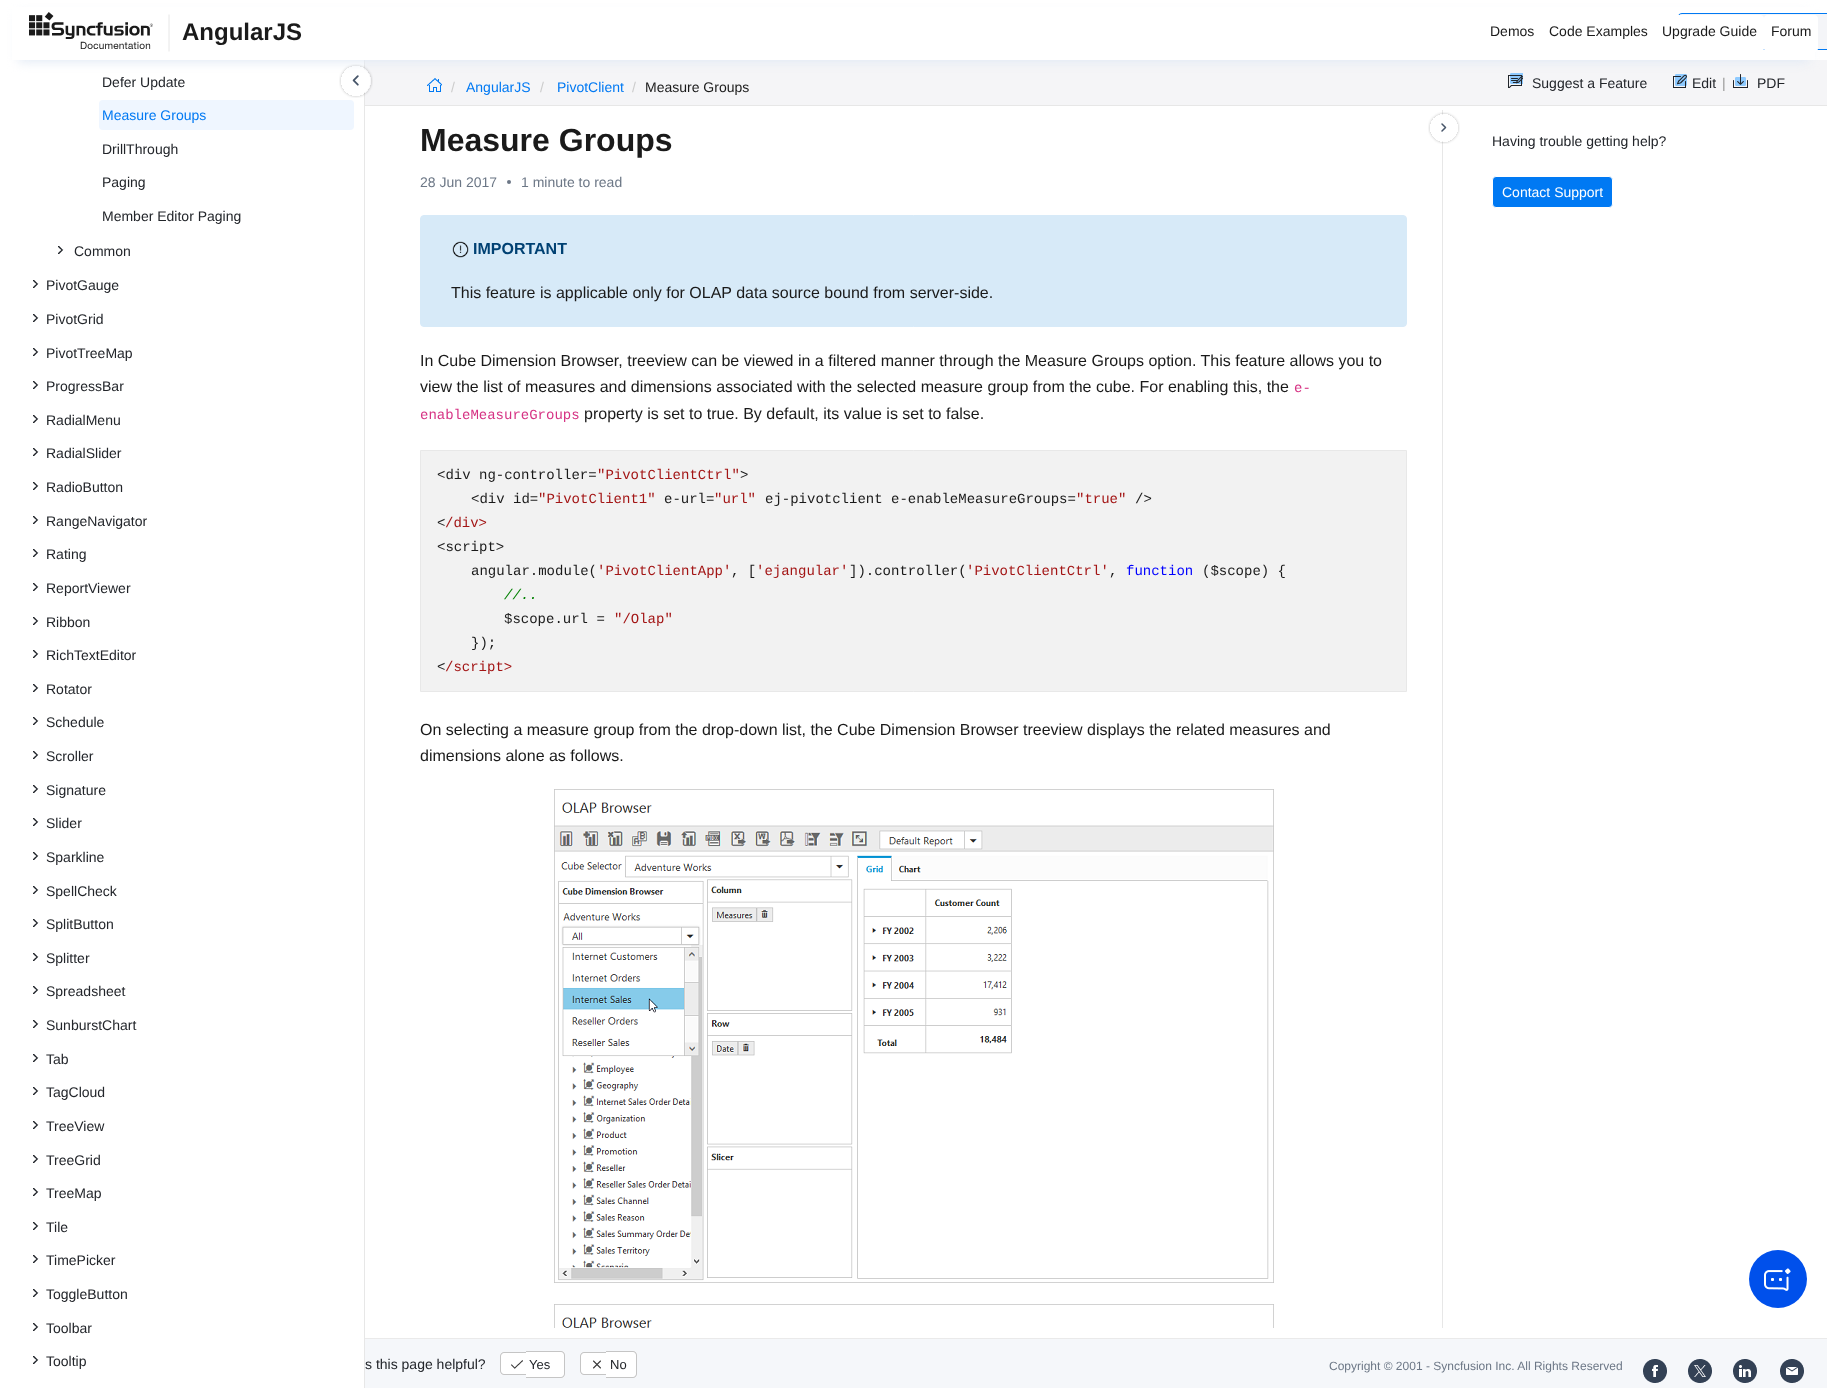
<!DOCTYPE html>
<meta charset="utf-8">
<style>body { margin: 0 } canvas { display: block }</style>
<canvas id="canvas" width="1827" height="1388"></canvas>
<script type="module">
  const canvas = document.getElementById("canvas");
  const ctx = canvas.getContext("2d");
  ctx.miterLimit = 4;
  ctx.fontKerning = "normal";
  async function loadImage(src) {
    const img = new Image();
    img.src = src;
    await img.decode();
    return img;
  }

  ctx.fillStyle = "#ffffff";
  ctx.fillRect(0, 0, 1827, 1388);
  ctx.fillStyle = "#f5f5f7";
  ctx.fillRect(365, 60, 1462, 45);
  ctx.drawImage(await loadImage("img2.png"), 427, 78, 15, 14);
  ctx.drawImage(await loadImage("img3.png"), 1508, 73, 15, 15);
  ctx.drawImage(await loadImage("img4.png"), 1673, 74, 14, 14);
  ctx.drawImage(await loadImage("img5.png"), 1733, 74, 15, 14);
  ctx.fillStyle = "#e7e7e7";
  ctx.fillRect(364, 60, 1, 1328);
  ctx.drawImage(await loadImage("img7.png"), 339, 64, 34, 34);
  ctx.fillStyle = "#e2eaf5";
  ctx.filter = "blur(5.5px)";
  ctx.beginPath();
  ctx.rect(18, 14, 1791, 48);
  ctx.fill();
  ctx.filter = "none";
  ctx.fillStyle = "#ffffff";
  ctx.fillRect(12, 7, 1803, 53);
  ctx.drawImage(await loadImage("img1.png"), 29, 12, 141, 40);
  ctx.font = "bold 24px Liberation Sans";
  ctx.fillStyle = "#1a1a1a";
  ctx.fillText("AngularJS", 182, 40);
  ctx.fillStyle = "#f4f5f8";
  ctx.beginPath();
  ctx.roundRect(1677.5, 13.5, 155, 36, 4.5);
  ctx.fill();
  ctx.strokeStyle = "#0079f3";
  ctx.stroke();
  ctx.font = "14px Liberation Sans";
  ctx.fillStyle = "#1a1a1a";
  ctx.fillText("Demos", 1490, 36);
  ctx.fillText("Code Examples", 1549, 36);
  ctx.fillStyle = "#ffffff";
  ctx.beginPath();
  ctx.roundRect(1655, 15, 109, 37, 4);
  ctx.fill();
  ctx.fillStyle = "#1a1a1a";
  ctx.fillText("Upgrade Guide", 1662, 36);
  ctx.fillStyle = "#ffffff";
  ctx.beginPath();
  ctx.roundRect(1764, 15, 54, 37, 4);
  ctx.fill();
  ctx.fillStyle = "#1a1a1a";
  ctx.fillText("Forum", 1771, 36);
  ctx.fillStyle = "#e7e7e7";
  ctx.fillRect(365, 105, 1462, 1);
  ctx.fillStyle = "#cccccc";
  ctx.fillText("/", 451, 92);
  ctx.fillStyle = "#0079f3";
  ctx.fillText("AngularJS", 466, 92);
  ctx.fillStyle = "#cccccc";
  ctx.fillText("/", 540, 92);
  ctx.fillStyle = "#0079f3";
  ctx.fillText("PivotClient", 557, 92);
  ctx.fillStyle = "#cccccc";
  ctx.fillText("/", 632, 92);
  ctx.fillStyle = "#1a1a1a";
  ctx.fillText("Measure Groups", 645, 92);
  ctx.fillStyle = "#22252a";
  ctx.fillText("Suggest a Feature", 1532, 88);
  ctx.fillText("Edit", 1692, 88);
  ctx.fillStyle = "#979797";
  ctx.fillText("|", 1722, 88);
  ctx.fillStyle = "#22252a";
  ctx.fillText("PDF", 1757, 88);
  ctx.fillText("Defer Update", 102, 87);
  ctx.fillStyle = "#eff6ff";
  ctx.beginPath();
  ctx.roundRect(99, 100, 255, 30, 4);
  ctx.fill();
  ctx.fillStyle = "#0079f3";
  ctx.fillText("Measure Groups", 102, 120);
  ctx.fillStyle = "#22252a";
  ctx.fillText("DrillThrough", 102, 154);
  ctx.fillText("Paging", 102, 187);
  ctx.fillText("Member Editor Paging", 102, 221);
  ctx.drawImage(await loadImage("img6.png"), 58, 246, 6, 8);
  ctx.fillText("Common", 74, 256);
  ctx.drawImage(await loadImage("img6.png"), 33, 280, 6, 8);
  ctx.fillText("PivotGauge", 46, 290);
  ctx.drawImage(await loadImage("img6.png"), 33, 314, 6, 8);
  ctx.fillText("PivotGrid", 46, 324);
  ctx.drawImage(await loadImage("img6.png"), 33, 348, 6, 8);
  ctx.fillText("PivotTreeMap", 46, 358);
  ctx.drawImage(await loadImage("img6.png"), 33, 381, 6, 8);
  ctx.fillText("ProgressBar", 46, 391);
  ctx.drawImage(await loadImage("img6.png"), 33, 415, 6, 8);
  ctx.fillText("RadialMenu", 46, 425);
  ctx.drawImage(await loadImage("img6.png"), 33, 448, 6, 8);
  ctx.fillText("RadialSlider", 46, 458);
  ctx.drawImage(await loadImage("img6.png"), 33, 482, 6, 8);
  ctx.fillText("RadioButton", 46, 492);
  ctx.drawImage(await loadImage("img6.png"), 33, 516, 6, 8);
  ctx.fillText("RangeNavigator", 46, 526);
  ctx.drawImage(await loadImage("img6.png"), 33, 549, 6, 8);
  ctx.fillText("Rating", 46, 559);
  ctx.drawImage(await loadImage("img6.png"), 33, 583, 6, 8);
  ctx.fillText("ReportViewer", 46, 593);
  ctx.drawImage(await loadImage("img6.png"), 33, 617, 6, 8);
  ctx.fillText("Ribbon", 46, 627);
  ctx.drawImage(await loadImage("img6.png"), 33, 650, 6, 8);
  ctx.fillText("RichTextEditor", 46, 660);
  ctx.drawImage(await loadImage("img6.png"), 33, 684, 6, 8);
  ctx.fillText("Rotator", 46, 694);
  ctx.drawImage(await loadImage("img6.png"), 33, 717, 6, 8);
  ctx.fillText("Schedule", 46, 727);
  ctx.drawImage(await loadImage("img6.png"), 33, 751, 6, 8);
  ctx.fillText("Scroller", 46, 761);
  ctx.drawImage(await loadImage("img6.png"), 33, 785, 6, 8);
  ctx.fillText("Signature", 46, 795);
  ctx.drawImage(await loadImage("img6.png"), 33, 818, 6, 8);
  ctx.fillText("Slider", 46, 828);
  ctx.drawImage(await loadImage("img6.png"), 33, 852, 6, 8);
  ctx.fillText("Sparkline", 46, 862);
  ctx.drawImage(await loadImage("img6.png"), 33, 886, 6, 8);
  ctx.fillText("SpellCheck", 46, 896);
  ctx.drawImage(await loadImage("img6.png"), 33, 919, 6, 8);
  ctx.fillText("SplitButton", 46, 929);
  ctx.drawImage(await loadImage("img6.png"), 33, 953, 6, 8);
  ctx.fillText("Splitter", 46, 963);
  ctx.drawImage(await loadImage("img6.png"), 33, 986, 6, 8);
  ctx.fillText("Spreadsheet", 46, 996);
  ctx.drawImage(await loadImage("img6.png"), 33, 1020, 6, 8);
  ctx.fillText("SunburstChart", 46, 1030);
  ctx.drawImage(await loadImage("img6.png"), 33, 1054, 6, 8);
  ctx.fillText("Tab", 46, 1064);
  ctx.drawImage(await loadImage("img6.png"), 33, 1087, 6, 8);
  ctx.fillText("TagCloud", 46, 1097);
  ctx.drawImage(await loadImage("img6.png"), 33, 1121, 6, 8);
  ctx.fillText("TreeView", 46, 1131);
  ctx.drawImage(await loadImage("img6.png"), 33, 1155, 6, 8);
  ctx.fillText("TreeGrid", 46, 1165);
  ctx.drawImage(await loadImage("img6.png"), 33, 1188, 6, 8);
  ctx.fillText("TreeMap", 46, 1198);
  ctx.drawImage(await loadImage("img6.png"), 33, 1222, 6, 8);
  ctx.fillText("Tile", 46, 1232);
  ctx.drawImage(await loadImage("img6.png"), 33, 1255, 6, 8);
  ctx.fillText("TimePicker", 46, 1265);
  ctx.drawImage(await loadImage("img6.png"), 33, 1289, 6, 8);
  ctx.fillText("ToggleButton", 46, 1299);
  ctx.drawImage(await loadImage("img6.png"), 33, 1323, 6, 8);
  ctx.fillText("Toolbar", 46, 1333);
  ctx.drawImage(await loadImage("img6.png"), 33, 1356, 6, 8);
  ctx.fillText("Tooltip", 46, 1366);
  ctx.fillStyle = "#e7e7e7";
  ctx.fillRect(1442, 110, 1, 1218);
  ctx.font = "bold 32px Liberation Sans";
  ctx.fillStyle = "#1a1a1a";
  ctx.fillText("Measure Groups", 420, 151);
  ctx.font = "14px Liberation Sans";
  ctx.fillStyle = "#6c7786";
  ctx.fillText("28 Jun 2017", 420, 187);
  ctx.beginPath();
  ctx.arc(509, 182, 2, 0, Math.PI * 2);
  ctx.fill();
  ctx.fillText("1 minute to read", 521, 187);
  ctx.fillStyle = "#d7eaf8";
  ctx.beginPath();
  ctx.roundRect(420.5, 215.5, 986, 111, 3.5);
  ctx.fill();
  ctx.strokeStyle = "#d7eaf8";
  ctx.stroke();
  ctx.drawImage(await loadImage("img8.png"), 452, 241, 17, 17);
  ctx.font = "bold 16px Liberation Sans";
  ctx.fillStyle = "#004173";
  ctx.fillText("IMPORTANT", 473, 254);
  ctx.font = "16px Liberation Sans";
  ctx.fillStyle = "#1a1a1a";
  ctx.fillText("This feature is applicable only for OLAP data source bound from server-side.", 451, 298);
  ctx.fillText("In Cube Dimension Browser, treeview can be viewed in a filtered manner through the Measure Groups option. This feature allows you to", 420, 366);
  ctx.fillText("view the list of measures and dimensions associated with the selected measure group from the cube. For enabling this, the", 420, 392);
  ctx.font = "14px Liberation Mono";
  ctx.fillStyle = "#d63384";
  ctx.fillText("e-", 1294, 392);
  ctx.fillText("enableMeasureGroups", 420, 419);
  ctx.font = "16px Liberation Sans";
  ctx.fillStyle = "#1a1a1a";
  ctx.fillText("property is set to true. By default, its value is set to false.", 584, 419);
  ctx.fillStyle = "#f2f2f2";
  ctx.beginPath();
  ctx.rect(420.5, 450.5, 986, 241);
  ctx.fill();
  ctx.strokeStyle = "#e8e8e8";
  ctx.stroke();
  ctx.font = "14px Liberation Mono";
  ctx.fillStyle = "#1a1a1a";
  ctx.fillText("<div ng-controller=", 437, 479);
  ctx.fillStyle = "#a31515";
  ctx.fillText("\"PivotClientCtrl\"", 597, 479);
  ctx.fillStyle = "#1a1a1a";
  ctx.fillText(">", 740, 479);
  ctx.fillText("<div id=", 471, 503);
  ctx.fillStyle = "#a31515";
  ctx.fillText("\"PivotClient1\"", 538, 503);
  ctx.fillStyle = "#1a1a1a";
  ctx.fillText("e-url=", 664, 503);
  ctx.fillStyle = "#a31515";
  ctx.fillText("\"url\"", 714, 503);
  ctx.fillStyle = "#1a1a1a";
  ctx.fillText("ej-pivotclient e-enableMeasureGroups=", 765, 503);
  ctx.fillStyle = "#a31515";
  ctx.fillText("\"true\"", 1076, 503);
  ctx.fillStyle = "#1a1a1a";
  ctx.fillText("/>", 1135, 503);
  ctx.fillText("<", 437, 527);
  ctx.fillStyle = "#a31515";
  ctx.fillText("/div>", 445, 527);
  ctx.fillStyle = "#1a1a1a";
  ctx.fillText("<script>", 437, 551);
  ctx.fillText("angular.module(", 471, 575);
  ctx.fillStyle = "#a31515";
  ctx.fillText("'PivotClientApp'", 597, 575);
  ctx.fillStyle = "#1a1a1a";
  ctx.fillText(", [", 731, 575);
  ctx.fillStyle = "#a31515";
  ctx.fillText("'ejangular'", 756, 575);
  ctx.fillStyle = "#1a1a1a";
  ctx.fillText("]).controller(", 849, 575);
  ctx.fillStyle = "#a31515";
  ctx.fillText("'PivotClientCtrl'", 966, 575);
  ctx.fillStyle = "#1a1a1a";
  ctx.fillText(",", 1109, 575);
  ctx.fillStyle = "#0000ff";
  ctx.fillText("function", 1126, 575);
  ctx.fillStyle = "#1a1a1a";
  ctx.fillText("($scope) {", 1202, 575);
  ctx.font = "italic 14px Liberation Mono";
  ctx.fillStyle = "#008000";
  ctx.fillText("//..", 504, 599);
  ctx.font = "14px Liberation Mono";
  ctx.fillStyle = "#1a1a1a";
  ctx.fillText("$scope.url =", 504, 623);
  ctx.fillStyle = "#a31515";
  ctx.fillText("\"/Olap\"", 614, 623);
  ctx.fillStyle = "#1a1a1a";
  ctx.fillText("});", 471, 647);
  ctx.fillText("<", 437, 671);
  ctx.fillStyle = "#a31515";
  ctx.fillText("/script>", 445, 671);
  ctx.font = "16px Liberation Sans";
  ctx.fillStyle = "#1a1a1a";
  ctx.fillText("On selecting a measure group from the drop-down list, the Cube Dimension Browser treeview displays the related measures and", 420, 735);
  ctx.fillText("dimensions alone as follows.", 420, 761);
  ctx.drawImage(await loadImage("img9.png"), 554, 789, 720, 494);
  ctx.drawImage(await loadImage("img10.png"), 554, 1304, 720, 24);
  ctx.drawImage(await loadImage("img11.png"), 1428, 112, 32, 32);
  ctx.font = "14px Liberation Sans";
  ctx.fillStyle = "#22252a";
  ctx.fillText("Having trouble getting help?", 1492, 146);
  ctx.fillStyle = "#0079f3";
  ctx.beginPath();
  ctx.roundRect(1492.5, 176.5, 120, 31, 3.5);
  ctx.fill();
  ctx.strokeStyle = "#ffffff";
  ctx.stroke();
  ctx.fillStyle = "#ffffff";
  ctx.fillText("Contact Support", 1502, 197);
  ctx.fillStyle = "#0050eb";
  ctx.beginPath();
  ctx.arc(1778, 1279, 29, 0, Math.PI * 2);
  ctx.fill();
  ctx.drawImage(await loadImage("img12.png"), 1764, 1268, 27, 23);
  ctx.fillStyle = "#f5f7fa";
  ctx.fillRect(365, 1339, 1462, 49);
  ctx.fillStyle = "#eaeaea";
  ctx.fillRect(365, 1338, 1462, 1);
  ctx.fillStyle = "#22252a";
  ctx.fillText("s this page helpful?", 365, 1369);
  ctx.fillStyle = "#ffffff";
  ctx.beginPath();
  ctx.roundRect(500, 1352, 26, 23, [4, 0, 0, 4]);
  ctx.fill();
  ctx.fillStyle = "#c5c5c5";
  ctx.beginPath();
  ctx.moveTo(504, 1352);
  ctx.lineTo(526, 1352);
  ctx.lineTo(526, 1375);
  ctx.lineTo(504, 1375);
  ctx.bezierCurveTo(502, 1375, 500, 1373, 500, 1371);
  ctx.lineTo(500, 1356);
  ctx.bezierCurveTo(500, 1354, 502, 1352, 504, 1352);
  ctx.closePath();
  ctx.moveTo(504, 1353);
  ctx.lineTo(526, 1353);
  ctx.lineTo(526, 1374);
  ctx.lineTo(504, 1374);
  ctx.bezierCurveTo(502.5, 1374, 501, 1372.5, 501, 1371);
  ctx.lineTo(501, 1356);
  ctx.bezierCurveTo(501, 1354.5, 502.5, 1353, 504, 1353);
  ctx.closePath();
  ctx.fill("evenodd");
  ctx.fillStyle = "#ffffff";
  ctx.beginPath();
  ctx.roundRect(526, 1351, 39, 27, [0, 4, 4, 0]);
  ctx.fill();
  ctx.fillStyle = "#c5c5c5";
  ctx.beginPath();
  ctx.moveTo(526, 1351);
  ctx.lineTo(561, 1351);
  ctx.bezierCurveTo(563, 1351, 565, 1353, 565, 1355);
  ctx.lineTo(565, 1374);
  ctx.bezierCurveTo(565, 1376, 563, 1378, 561, 1378);
  ctx.lineTo(526, 1378);
  ctx.closePath();
  ctx.moveTo(526, 1352);
  ctx.lineTo(561, 1352);
  ctx.bezierCurveTo(562.5, 1352, 564, 1353.5, 564, 1355);
  ctx.lineTo(564, 1374);
  ctx.bezierCurveTo(564, 1375.5, 562.5, 1377, 561, 1377);
  ctx.lineTo(526, 1377);
  ctx.closePath();
  ctx.fill("evenodd");
  ctx.drawImage(await loadImage("img13.png"), 511, 1360, 12, 9);
  ctx.font = "13px Liberation Sans";
  ctx.fillStyle = "#22252a";
  ctx.fillText("Yes", 529, 1369);
  ctx.fillStyle = "#ffffff";
  ctx.beginPath();
  ctx.roundRect(580, 1352, 26, 23, [4, 0, 0, 4]);
  ctx.fill();
  ctx.fillStyle = "#c5c5c5";
  ctx.beginPath();
  ctx.moveTo(584, 1352);
  ctx.lineTo(606, 1352);
  ctx.lineTo(606, 1375);
  ctx.lineTo(584, 1375);
  ctx.bezierCurveTo(582, 1375, 580, 1373, 580, 1371);
  ctx.lineTo(580, 1356);
  ctx.bezierCurveTo(580, 1354, 582, 1352, 584, 1352);
  ctx.closePath();
  ctx.moveTo(584, 1353);
  ctx.lineTo(606, 1353);
  ctx.lineTo(606, 1374);
  ctx.lineTo(584, 1374);
  ctx.bezierCurveTo(582.5, 1374, 581, 1372.5, 581, 1371);
  ctx.lineTo(581, 1356);
  ctx.bezierCurveTo(581, 1354.5, 582.5, 1353, 584, 1353);
  ctx.closePath();
  ctx.fill("evenodd");
  ctx.fillStyle = "#ffffff";
  ctx.beginPath();
  ctx.roundRect(606, 1351, 31, 27, [0, 4, 4, 0]);
  ctx.fill();
  ctx.fillStyle = "#c5c5c5";
  ctx.beginPath();
  ctx.moveTo(606, 1351);
  ctx.lineTo(633, 1351);
  ctx.bezierCurveTo(635, 1351, 637, 1353, 637, 1355);
  ctx.lineTo(637, 1374);
  ctx.bezierCurveTo(637, 1376, 635, 1378, 633, 1378);
  ctx.lineTo(606, 1378);
  ctx.closePath();
  ctx.moveTo(606, 1352);
  ctx.lineTo(633, 1352);
  ctx.bezierCurveTo(634.5, 1352, 636, 1353.5, 636, 1355);
  ctx.lineTo(636, 1374);
  ctx.bezierCurveTo(636, 1375.5, 634.5, 1377, 633, 1377);
  ctx.lineTo(606, 1377);
  ctx.closePath();
  ctx.fill("evenodd");
  ctx.drawImage(await loadImage("img14.png"), 593, 1360, 8, 9);
  ctx.fillStyle = "#22252a";
  ctx.fillText("No", 610, 1369);
  ctx.font = "12px Liberation Sans";
  ctx.fillStyle = "#6c7786";
  ctx.fillText("Copyright © 2001 - Syncfusion Inc. All Rights Reserved", 1329, 1370);
  ctx.drawImage(await loadImage("img15.png"), 1643, 1359, 24, 24);
  ctx.drawImage(await loadImage("img16.png"), 1688, 1359, 24, 24);
  ctx.drawImage(await loadImage("img17.png"), 1733, 1359, 24, 24);
  ctx.drawImage(await loadImage("img18.png"), 1780, 1359, 24, 24);
</script>
